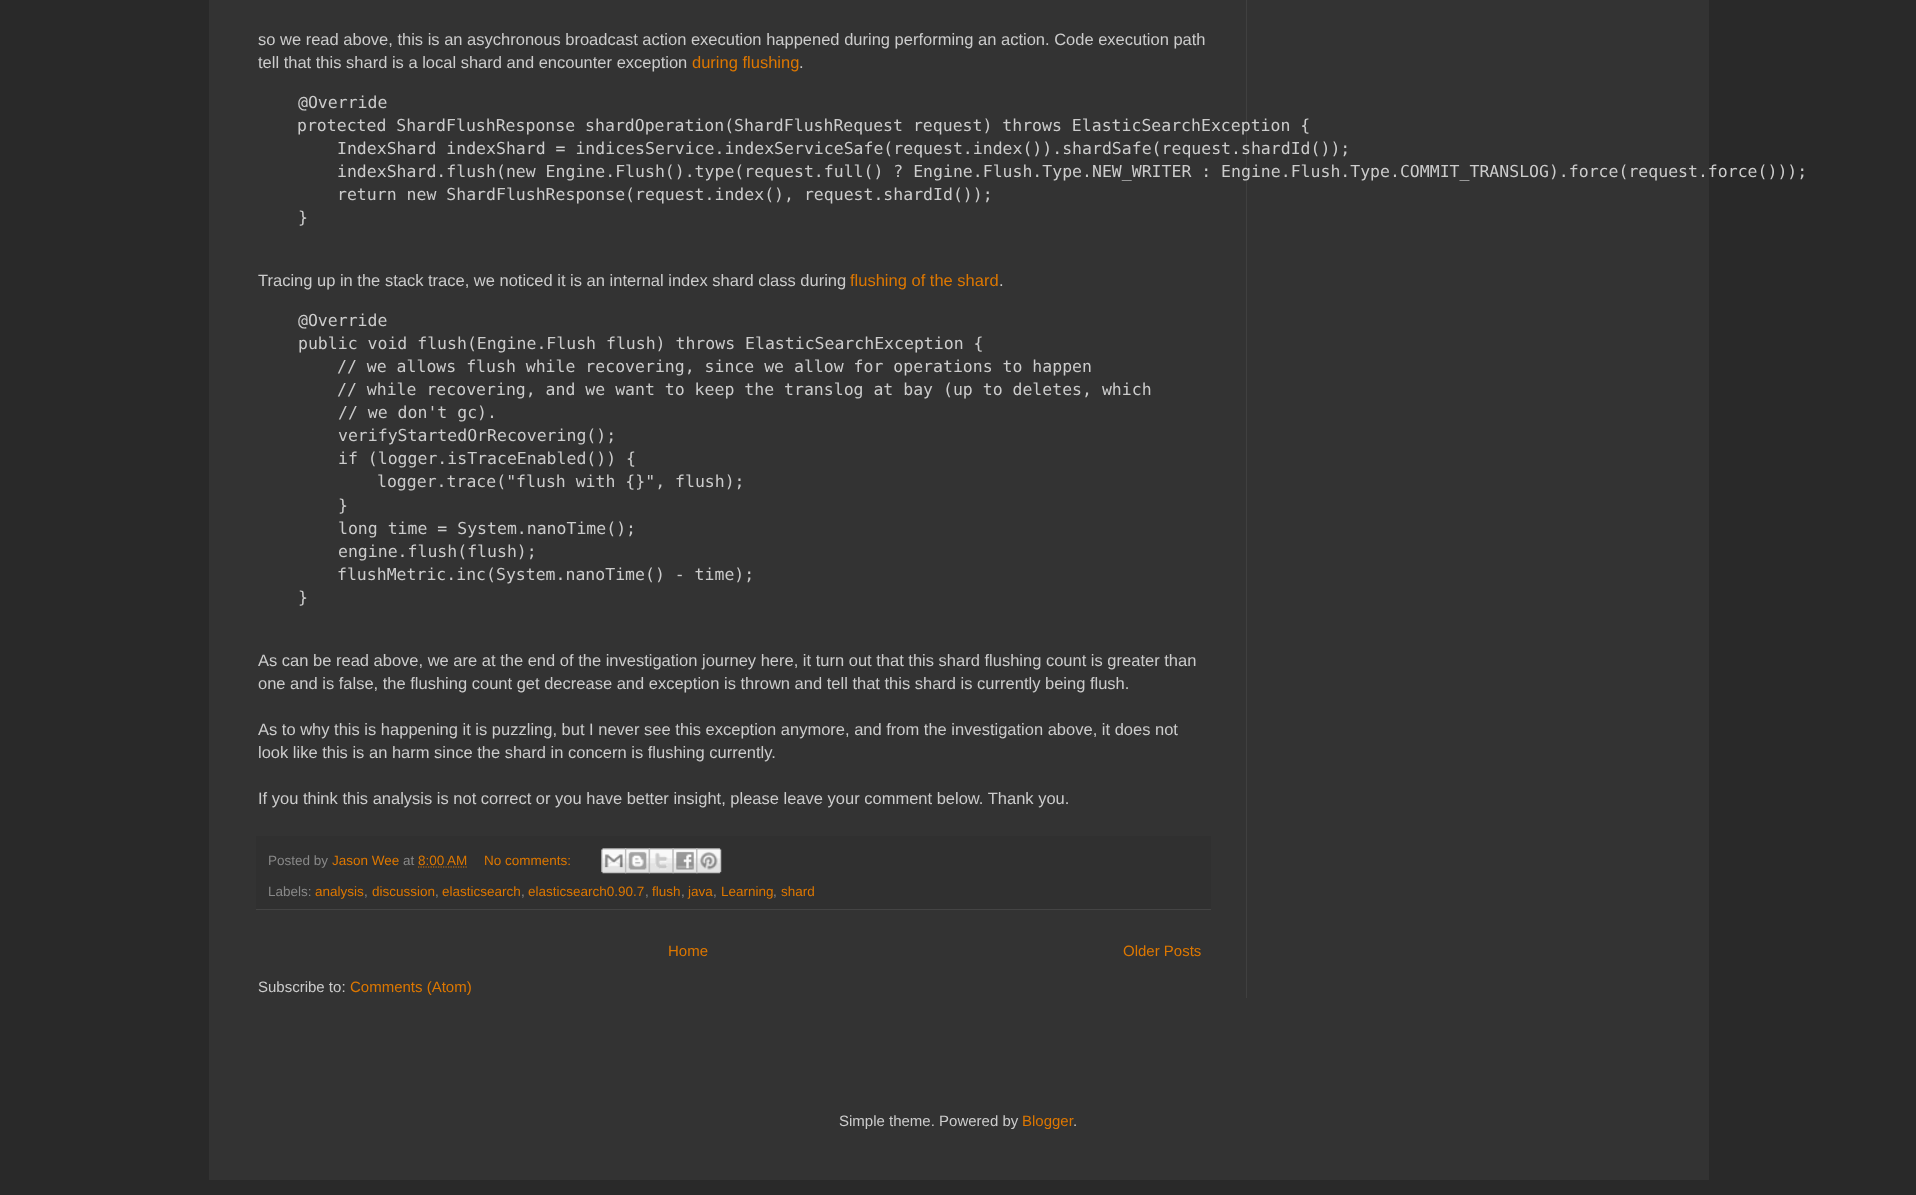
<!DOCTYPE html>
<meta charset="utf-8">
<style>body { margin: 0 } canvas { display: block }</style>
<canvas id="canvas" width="1916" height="1195"></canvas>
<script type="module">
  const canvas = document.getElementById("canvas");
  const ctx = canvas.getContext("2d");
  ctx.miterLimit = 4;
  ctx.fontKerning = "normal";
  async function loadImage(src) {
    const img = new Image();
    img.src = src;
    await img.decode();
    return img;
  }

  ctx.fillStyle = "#292929";
  ctx.fillRect(0, 0, 1916, 1195);
  ctx.fillStyle = "#333333";
  ctx.fillRect(209, 0, 1500, 1180);
  ctx.fillStyle = "#404040";
  ctx.fillRect(1246, 0, 1, 998);
  ctx.font = "16.5px Liberation Sans";
  ctx.fillStyle = "#cccccc";
  ctx.fillText("so we read above, this is an asychronous broadcast action execution happened during performing an action. Code execution path", 258, 45);
  ctx.fillText("tell that this shard is a local shard and encounter exception", 258, 68);
  ctx.fillStyle = "#dd7700";
  ctx.fillText("during flushing", 692, 68);
  ctx.fillStyle = "#cccccc";
  ctx.fillText(".", 799, 68);
  ctx.font = "16.5px DejaVu Sans Mono";
  ctx.fillText("@Override", 298, 108);
  ctx.fillText("protected ShardFlushResponse shardOperation(ShardFlushRequest request) throws ElasticSearchException {", 297, 131);
  ctx.fillText("IndexShard indexShard = indicesService.indexServiceSafe(request.index()).shardSafe(request.shardId());", 337, 154);
  ctx.fillText("indexShard.flush(new Engine.Flush().type(request.full() ? Engine.Flush.Type.NEW_WRITER : Engine.Flush.Type.COMMIT_TRANSLOG).force(request.force()));", 337, 177);
  ctx.fillText("return new ShardFlushResponse(request.index(), request.shardId());", 337, 200);
  ctx.fillText("}", 298, 223);
  ctx.font = "16.5px Liberation Sans";
  ctx.fillText("Tracing up in the stack trace, we noticed it is an internal index shard class during", 258, 286);
  ctx.fillStyle = "#dd7700";
  ctx.fillText("flushing of the shard", 850, 286);
  ctx.fillStyle = "#cccccc";
  ctx.fillText(".", 999, 286);
  ctx.font = "16.5px DejaVu Sans Mono";
  ctx.fillText("@Override", 298, 326);
  ctx.fillText("public void flush(Engine.Flush flush) throws ElasticSearchException {", 298, 349);
  ctx.fillText("// we allows flush while recovering, since we allow for operations to happen", 337, 372);
  ctx.fillText("// while recovering, and we want to keep the translog at bay (up to deletes, which", 337, 395);
  ctx.fillText("// we don't gc).", 338, 418);
  ctx.fillText("verifyStartedOrRecovering();", 338, 441);
  ctx.fillText("if (logger.isTraceEnabled()) {", 338, 464);
  ctx.fillText("logger.trace(\"flush with {}\", flush);", 377, 487);
  ctx.fillText("}", 338, 511);
  ctx.fillText("long time = System.nanoTime();", 338, 534);
  ctx.fillText("engine.flush(flush);", 338, 557);
  ctx.fillText("flushMetric.inc(System.nanoTime() - time);", 337, 580);
  ctx.fillText("}", 298, 603);
  ctx.font = "16.5px Liberation Sans";
  ctx.fillText("As can be read above, we are at the end of the investigation journey here, it turn out that this shard flushing count is greater than", 258, 666);
  ctx.fillText("one and is false, the flushing count get decrease and exception is thrown and tell that this shard is currently being flush.", 258, 689);
  ctx.fillText("As to why this is happening it is puzzling, but I never see this exception anymore, and from the investigation above, it does not", 258, 735);
  ctx.fillText("look like this is an harm since the shard in concern is flushing currently.", 258, 758);
  ctx.fillText("If you think this analysis is not correct or you have better insight, please leave your comment below. Thank you.", 258, 804);
  ctx.fillStyle = "#303030";
  ctx.fillRect(256, 836, 955, 73);
  ctx.fillStyle = "#444444";
  ctx.fillRect(256, 909, 955, 1);
  ctx.font = "13.5px Liberation Sans";
  ctx.fillStyle = "#888888";
  ctx.fillText("Posted by", 268, 865);
  ctx.fillStyle = "#dd7700";
  ctx.fillText("Jason Wee", 332, 865);
  ctx.fillStyle = "#888888";
  ctx.fillText("at", 403, 865);
  ctx.fillStyle = "#dd7700";
  ctx.fillText("8:00 AM", 418, 865);
  ctx.beginPath();
  ctx.moveTo(418, 867);
  ctx.lineTo(467, 867);
  ctx.strokeStyle = "#dd7700";
  ctx.lineWidth = 1.2;
  ctx.setLineDash([1.25, 1.25]);
  ctx.stroke();
  ctx.fillText("No comments:", 484, 865);
  ctx.drawImage(await loadImage("img1.png"), 601, 848, 26, 26);
  ctx.drawImage(await loadImage("img2.png"), 625, 848, 25, 26);
  ctx.drawImage(await loadImage("img3.png"), 648, 848, 26, 26);
  ctx.drawImage(await loadImage("img4.png"), 672, 848, 26, 26);
  ctx.drawImage(await loadImage("img5.png"), 696, 848, 26, 26);
  ctx.fillStyle = "#888888";
  ctx.fillText("Labels:", 268, 896);
  ctx.fillStyle = "#dd7700";
  ctx.fillText("analysis", 315, 896);
  ctx.fillStyle = "#888888";
  ctx.fillText(",", 364, 896);
  ctx.fillStyle = "#dd7700";
  ctx.fillText("discussion", 372, 896);
  ctx.fillStyle = "#888888";
  ctx.fillText(",", 435, 896);
  ctx.fillStyle = "#dd7700";
  ctx.fillText("elasticsearch", 442, 896);
  ctx.fillStyle = "#888888";
  ctx.fillText(",", 521, 896);
  ctx.fillStyle = "#dd7700";
  ctx.fillText("elasticsearch0.90.7", 528, 896);
  ctx.fillStyle = "#888888";
  ctx.fillText(",", 645, 896);
  ctx.fillStyle = "#dd7700";
  ctx.fillText("flush", 652, 896);
  ctx.fillStyle = "#888888";
  ctx.fillText(",", 681, 896);
  ctx.fillStyle = "#dd7700";
  ctx.fillText("java", 688, 896);
  ctx.fillStyle = "#888888";
  ctx.fillText(",", 713, 896);
  ctx.fillStyle = "#dd7700";
  ctx.fillText("Learning", 721, 896);
  ctx.fillStyle = "#888888";
  ctx.fillText(",", 773, 896);
  ctx.fillStyle = "#dd7700";
  ctx.fillText("shard", 781, 896);
  ctx.font = "15px Liberation Sans";
  ctx.fillText("Home", 668, 956);
  ctx.fillText("Older Posts", 1123, 956);
  ctx.fillStyle = "#cccccc";
  ctx.fillText("Subscribe to:", 258, 992);
  ctx.fillStyle = "#dd7700";
  ctx.fillText("Comments (Atom)", 350, 992);
  ctx.fillStyle = "#cccccc";
  ctx.fillText("Simple theme. Powered by", 839, 1126);
  ctx.fillStyle = "#dd7700";
  ctx.fillText("Blogger", 1022, 1126);
  ctx.fillStyle = "#cccccc";
  ctx.fillText(".", 1073, 1126);
</script>
